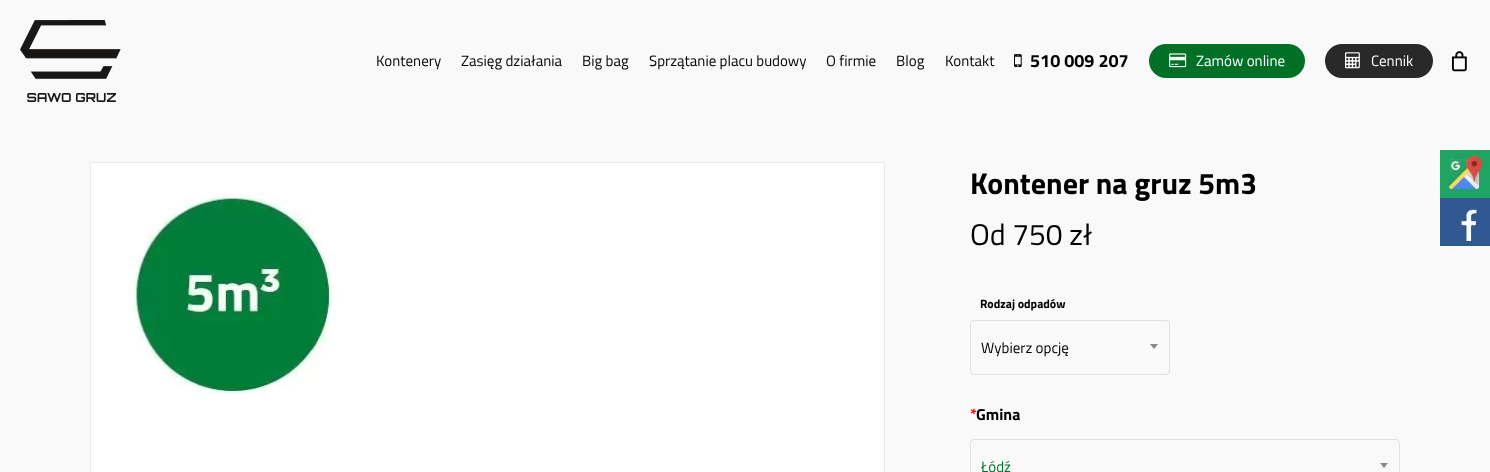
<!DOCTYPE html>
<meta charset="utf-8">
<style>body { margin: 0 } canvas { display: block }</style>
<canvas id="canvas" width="1490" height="472"></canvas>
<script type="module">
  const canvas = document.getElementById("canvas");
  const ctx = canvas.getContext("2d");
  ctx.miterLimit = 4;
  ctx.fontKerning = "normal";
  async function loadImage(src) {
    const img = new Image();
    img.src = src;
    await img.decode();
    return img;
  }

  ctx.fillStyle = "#f9f9f9";
  ctx.fillRect(0, 0, 1490, 472);
  ctx.drawImage(await loadImage("img1.png"), 20, 20, 101, 82);
  ctx.font = "15px Titillium Web";
  ctx.fillStyle = "#000000";
  ctx.fillText("Kontenery", 376, 66);
  ctx.fillText("Zasięg działania", 461, 66);
  ctx.fillText("Big bag", 582, 66);
  ctx.fillText("Sprzątanie placu budowy", 649, 66);
  ctx.fillText("O firmie", 826, 66);
  ctx.fillText("Blog", 896, 66);
  ctx.fillText("Kontakt", 945, 66);
  ctx.drawImage(await loadImage("img2.png"), 1014, 54, 8, 13);
  ctx.font = "bold 18px Titillium Web";
  ctx.fillText("510 009 207", 1030, 67);
  ctx.fillStyle = "#007027";
  ctx.beginPath();
  ctx.roundRect(1149, 44, 156, 34, 17);
  ctx.fill();
  ctx.drawImage(await loadImage("img3.png"), 1169, 53, 18, 15);
  ctx.font = "15px Titillium Web";
  ctx.fillStyle = "#ffffff";
  ctx.fillText("Zamów online", 1196, 66);
  ctx.fillStyle = "#292929";
  ctx.beginPath();
  ctx.roundRect(1325, 44, 108, 34, 17);
  ctx.fill();
  ctx.drawImage(await loadImage("img4.png"), 1345, 52, 15, 17);
  ctx.fillStyle = "#ffffff";
  ctx.fillText("Cennik", 1371, 66);
  ctx.drawImage(await loadImage("img5.png"), 1452, 51, 15, 21);
  ctx.strokeStyle = "#eaeaea";
  ctx.strokeRect(90.5, 162.5, 794, 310);
  ctx.drawImage(await loadImage("img6.png"), 91, 163, 793, 309);
  ctx.font = "bold 30px Titillium Web";
  ctx.fillStyle = "#000000";
  ctx.fillText("Kontener na gruz 5m3", 970, 194);
  ctx.font = "30px Titillium Web";
  ctx.fillText("Od 750 zł", 970, 245);
  ctx.font = "bold 12px Titillium Web";
  ctx.fillText("Rodzaj odpadów", 980, 308);
  ctx.beginPath();
  ctx.roundRect(970.5, 320.5, 199, 54, 3.5);
  ctx.strokeStyle = "#e0e0e0";
  ctx.stroke();
  ctx.font = "15px Titillium Web";
  ctx.fillText("Wybierz opcję", 981, 353);
  ctx.fillStyle = "#888888";
  ctx.beginPath();
  ctx.moveTo(1150, 344);
  ctx.lineTo(1158, 344);
  ctx.lineTo(1154, 349);
  ctx.closePath();
  ctx.fill();
  ctx.font = "bold 16px Titillium Web";
  ctx.fillStyle = "#ff0000";
  ctx.fillText("*", 970, 420);
  ctx.fillStyle = "#000000";
  ctx.fillText("Gmina", 976, 420);
  ctx.beginPath();
  ctx.roundRect(970.5, 439.5, 429, 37, 3.5);
  ctx.stroke();
  ctx.font = "15px Titillium Web";
  ctx.fillStyle = "#007027";
  ctx.fillText("Łódź", 981, 472);
  ctx.fillStyle = "#888888";
  ctx.beginPath();
  ctx.moveTo(1380, 463);
  ctx.lineTo(1388, 463);
  ctx.lineTo(1384, 468);
  ctx.closePath();
  ctx.fill();
  ctx.fillStyle = "#20a464";
  ctx.fillRect(1440, 150, 50, 48);
  ctx.drawImage(await loadImage("img7.png"), 1448, 155, 35, 35);
  ctx.fillStyle = "#305891";
  ctx.fillRect(1440, 198, 50, 48);
  ctx.drawImage(await loadImage("img8.png"), 1460, 207, 18, 34);
</script>
